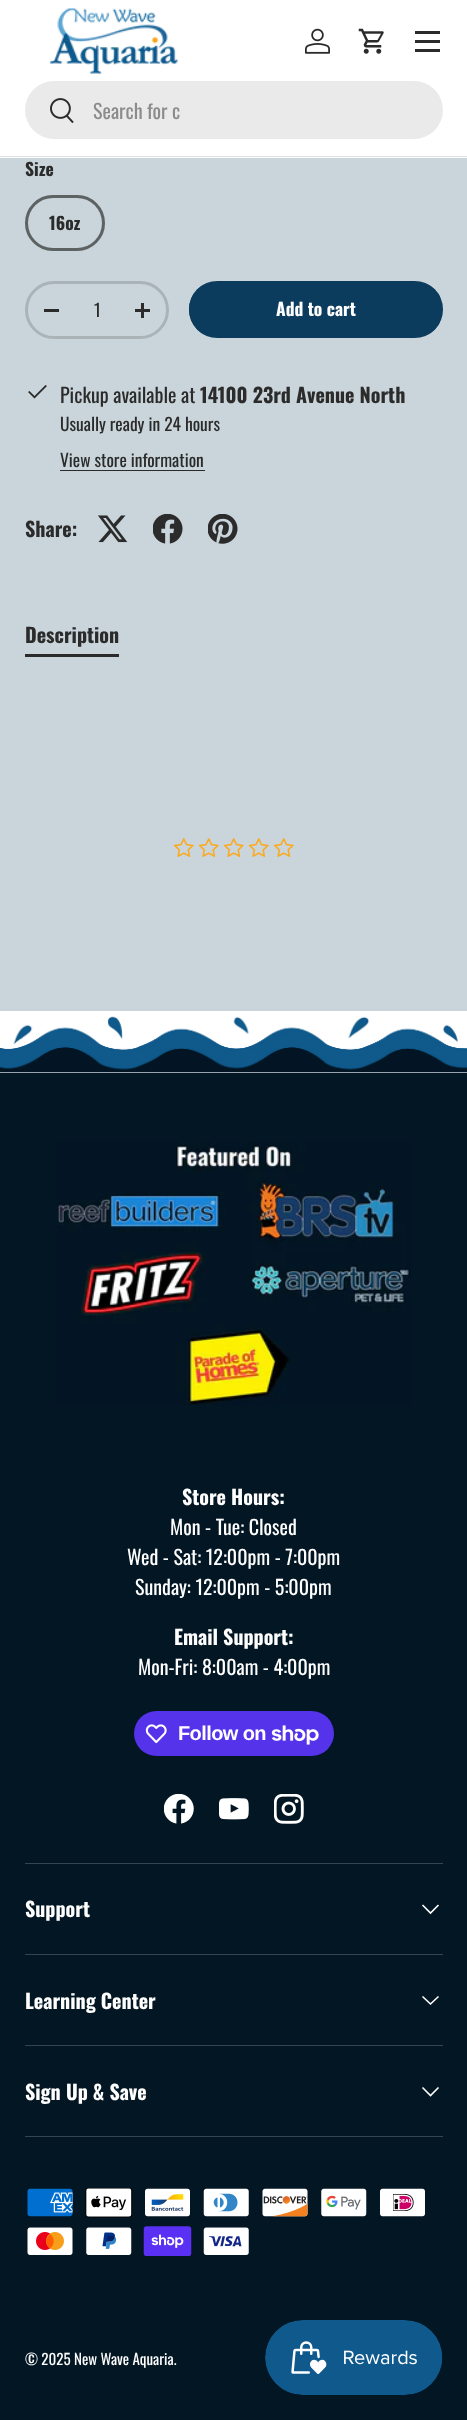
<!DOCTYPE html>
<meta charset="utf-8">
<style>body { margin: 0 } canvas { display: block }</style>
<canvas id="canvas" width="467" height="2420"></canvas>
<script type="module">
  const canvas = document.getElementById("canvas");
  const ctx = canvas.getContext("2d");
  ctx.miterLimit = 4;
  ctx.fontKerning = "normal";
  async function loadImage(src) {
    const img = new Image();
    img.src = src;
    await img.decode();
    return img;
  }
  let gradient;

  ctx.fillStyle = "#cad5db";
  ctx.fillRect(0, 0, 467, 2420);
  ctx.fillStyle = "#ffffff";
  ctx.fillRect(0, 0, 467, 158);
  ctx.fillStyle = "#dfdfdf";
  ctx.fillRect(0, 156, 467, 1);
  ctx.drawImage(await loadImage("img1.png"), 49, 8, 129, 66);
  ctx.drawImage(await loadImage("img2.png"), 305, 28, 25, 26);
  ctx.drawImage(await loadImage("img3.png"), 358, 28, 26, 26);
  ctx.fillStyle = "#2a2b2a";
  ctx.fillRect(415, 31, 25, 3);
  ctx.fillRect(415, 49, 25, 3);
  ctx.fillRect(415, 40, 25, 3);
  ctx.fillStyle = "#eaeaea";
  ctx.beginPath();
  ctx.roundRect(25, 81, 418, 58, 29);
  ctx.fill();
  ctx.drawImage(await loadImage("img4.png"), 50, 98, 24, 26);
  ctx.font = "20px Oswald";
  ctx.fillStyle = "#8a8b8a";
  ctx.fillText("Search for c", 93, 119);
  ctx.font = "bold 17.5px Oswald";
  ctx.fillStyle = "#2a2b2a";
  ctx.fillText("Size", 25, 176);
  ctx.beginPath();
  ctx.roundRect(26.5, 196.5, 77, 53, 26.5);
  ctx.strokeStyle = "#aab3b8";
  ctx.lineWidth = 3;
  ctx.stroke();
  ctx.beginPath();
  ctx.roundRect(26.5, 196.5, 77, 53, 26.5);
  ctx.strokeStyle = "rgba(42, 43, 42, 0.6)";
  ctx.stroke();
  ctx.fillText("16oz", 49, 230);
  ctx.beginPath();
  ctx.roundRect(26.5, 282.5, 141, 55, 27.5);
  ctx.strokeStyle = "#aab3b8";
  ctx.stroke();
  ctx.fillRect(44, 309, 15, 3);
  ctx.font = "17.5px Oswald";
  ctx.fillText("1", 94, 317);
  ctx.fillRect(135, 309, 15, 3);
  ctx.fillRect(141, 303, 3, 15);
  ctx.save();
  ctx.beginPath();
  ctx.roundRect(189, 281, 254, 57, 28.5);
  ctx.clip();
  gradient = ctx.createLinearGradient(-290, 220, 424, 398);
  gradient.addColorStop(0.6, "#346181");
  gradient.addColorStop(0.6, "#0b3c5e");
  gradient.addColorStop(1, "#0b3c5e");
  ctx.fillStyle = gradient;
  ctx.fillRect(189, 284, 251, 51);
  ctx.restore();
  ctx.beginPath();
  ctx.roundRect(190.5, 282.5, 251, 54, 27);
  ctx.strokeStyle = "#0b3c5e";
  ctx.stroke();
  ctx.font = "bold 17.5px Oswald";
  ctx.fillStyle = "#ffffff";
  ctx.fillText("Add to cart", 276, 316);
  ctx.fillStyle = "#2a2b2a";
  ctx.beginPath();
  ctx.moveTo(45.5, 385);
  ctx.lineTo(47, 386);
  ctx.lineTo(34.5, 398.5);
  ctx.lineTo(28, 392);
  ctx.lineTo(29.5, 391);
  ctx.lineTo(34.5, 396);
  ctx.closePath();
  ctx.fill();
  ctx.font = "20px Oswald";
  ctx.fillText("Pickup available at", 60, 403);
  ctx.font = "bold 20px Oswald";
  ctx.fillText("14100 23rd Avenue North", 200, 403);
  ctx.font = "17.5px Oswald";
  ctx.fillText("Usually ready in 24 hours", 60, 431);
  ctx.fillText("View store information", 60, 467);
  ctx.fillRect(60, 470, 145, 1);
  ctx.font = "bold 20px Oswald";
  ctx.fillText("Share:", 25, 537);
  ctx.drawImage(await loadImage("img5.png"), 98, 515, 30, 28);
  ctx.drawImage(await loadImage("img6.png"), 153, 514, 30, 30);
  ctx.drawImage(await loadImage("img7.png"), 208, 514, 30, 30);
  ctx.fillText("Description", 25, 643);
  ctx.fillRect(25, 654, 94, 3);
  ctx.drawImage(await loadImage("img8.png"), 173, 838, 21, 19);
  ctx.drawImage(await loadImage("img8.png"), 198, 838, 21, 19);
  ctx.drawImage(await loadImage("img8.png"), 223, 838, 21, 19);
  ctx.drawImage(await loadImage("img8.png"), 248, 838, 21, 19);
  ctx.drawImage(await loadImage("img8.png"), 273, 838, 21, 19);
  ctx.drawImage(await loadImage("img9.png"), 0, 1011, 467, 62);
  ctx.fillStyle = "#031623";
  ctx.fillRect(0, 1073, 467, 1347);
  ctx.drawImage(await loadImage("img10.png"), 57, 1142, 354, 264);
  ctx.fillStyle = "#ffffff";
  ctx.fillText("Store Hours:", 182, 1505);
  ctx.font = "20px Oswald";
  ctx.fillText("Mon - Tue: Closed", 170, 1535);
  ctx.fillText("Wed - Sat: 12:00pm - 7:00pm", 127, 1565);
  ctx.fillText("Sunday: 12:00pm - 5:00pm", 135, 1595);
  ctx.font = "bold 20px Oswald";
  ctx.fillText("Email Support:", 174, 1645);
  ctx.font = "20px Oswald";
  ctx.fillText("Mon-Fri: 8:00am - 4:00pm", 138, 1675);
  ctx.fillStyle = "#5433eb";
  ctx.beginPath();
  ctx.roundRect(134, 1711, 200, 45, 22.5);
  ctx.fill();
  ctx.drawImage(await loadImage("img11.png"), 145, 1724, 22, 20);
  ctx.letterSpacing = "-0.6px";
  ctx.font = "bold 20px Liberation Sans";
  ctx.fillStyle = "#ffffff";
  ctx.fillText("Follow on", 178, 1740);
  ctx.drawImage(await loadImage("img12.png"), 271, 1725, 48, 20);
  ctx.drawImage(await loadImage("img13.png"), 164, 1794, 30, 30);
  ctx.drawImage(await loadImage("img14.png"), 219, 1798, 30, 22);
  ctx.drawImage(await loadImage("img15.png"), 274, 1794, 30, 30);
  ctx.fillStyle = "#35454f";
  ctx.fillRect(25, 1863, 418, 1);
  ctx.fillRect(25, 1954, 418, 1);
  ctx.letterSpacing = "0px";
  ctx.font = "bold 20px Oswald";
  ctx.fillStyle = "#ffffff";
  ctx.fillText("Support", 25, 1917);
  ctx.beginPath();
  ctx.moveTo(438.5, 1905);
  ctx.lineTo(430.5, 1913);
  ctx.lineTo(422.5, 1905);
  ctx.strokeStyle = "#ffffff";
  ctx.lineWidth = 1.6;
  ctx.stroke();
  ctx.fillStyle = "#35454f";
  ctx.fillRect(25, 2045, 418, 1);
  ctx.fillStyle = "#ffffff";
  ctx.fillText("Learning Center", 25, 2009);
  ctx.beginPath();
  ctx.moveTo(438.5, 1996.5);
  ctx.lineTo(430.5, 2004);
  ctx.lineTo(422.5, 1996.5);
  ctx.stroke();
  ctx.fillStyle = "#35454f";
  ctx.fillRect(25, 2136, 418, 1);
  ctx.fillStyle = "#ffffff";
  ctx.fillText("Sign Up & Save", 25, 2100);
  ctx.beginPath();
  ctx.moveTo(438.5, 2087.5);
  ctx.lineTo(430.5, 2095.5);
  ctx.lineTo(422.5, 2087.5);
  ctx.stroke();
  ctx.drawImage(await loadImage("img16.png"), 27, 2188, 46, 29);
  ctx.drawImage(await loadImage("img17.png"), 85, 2188, 48, 30);
  ctx.drawImage(await loadImage("img18.png"), 145, 2188, 45, 29);
  ctx.drawImage(await loadImage("img19.png"), 203, 2188, 46, 29);
  ctx.drawImage(await loadImage("img20.png"), 262, 2188, 46, 29);
  ctx.drawImage(await loadImage("img21.png"), 321, 2188, 46, 29);
  ctx.drawImage(await loadImage("img22.png"), 380, 2188, 45, 29);
  ctx.drawImage(await loadImage("img23.png"), 27, 2227, 46, 28);
  ctx.drawImage(await loadImage("img24.png"), 86, 2227, 46, 28);
  ctx.drawImage(await loadImage("img25.png"), 143, 2226, 49, 30);
  ctx.drawImage(await loadImage("img26.png"), 203, 2227, 46, 28);
  ctx.font = "15px Oswald";
  ctx.fillText("© 2025 New Wave Aquaria.", 25, 2365);
  ctx.drawImage(await loadImage("img27.png"), 265, 2320, 178, 75);
</script>
